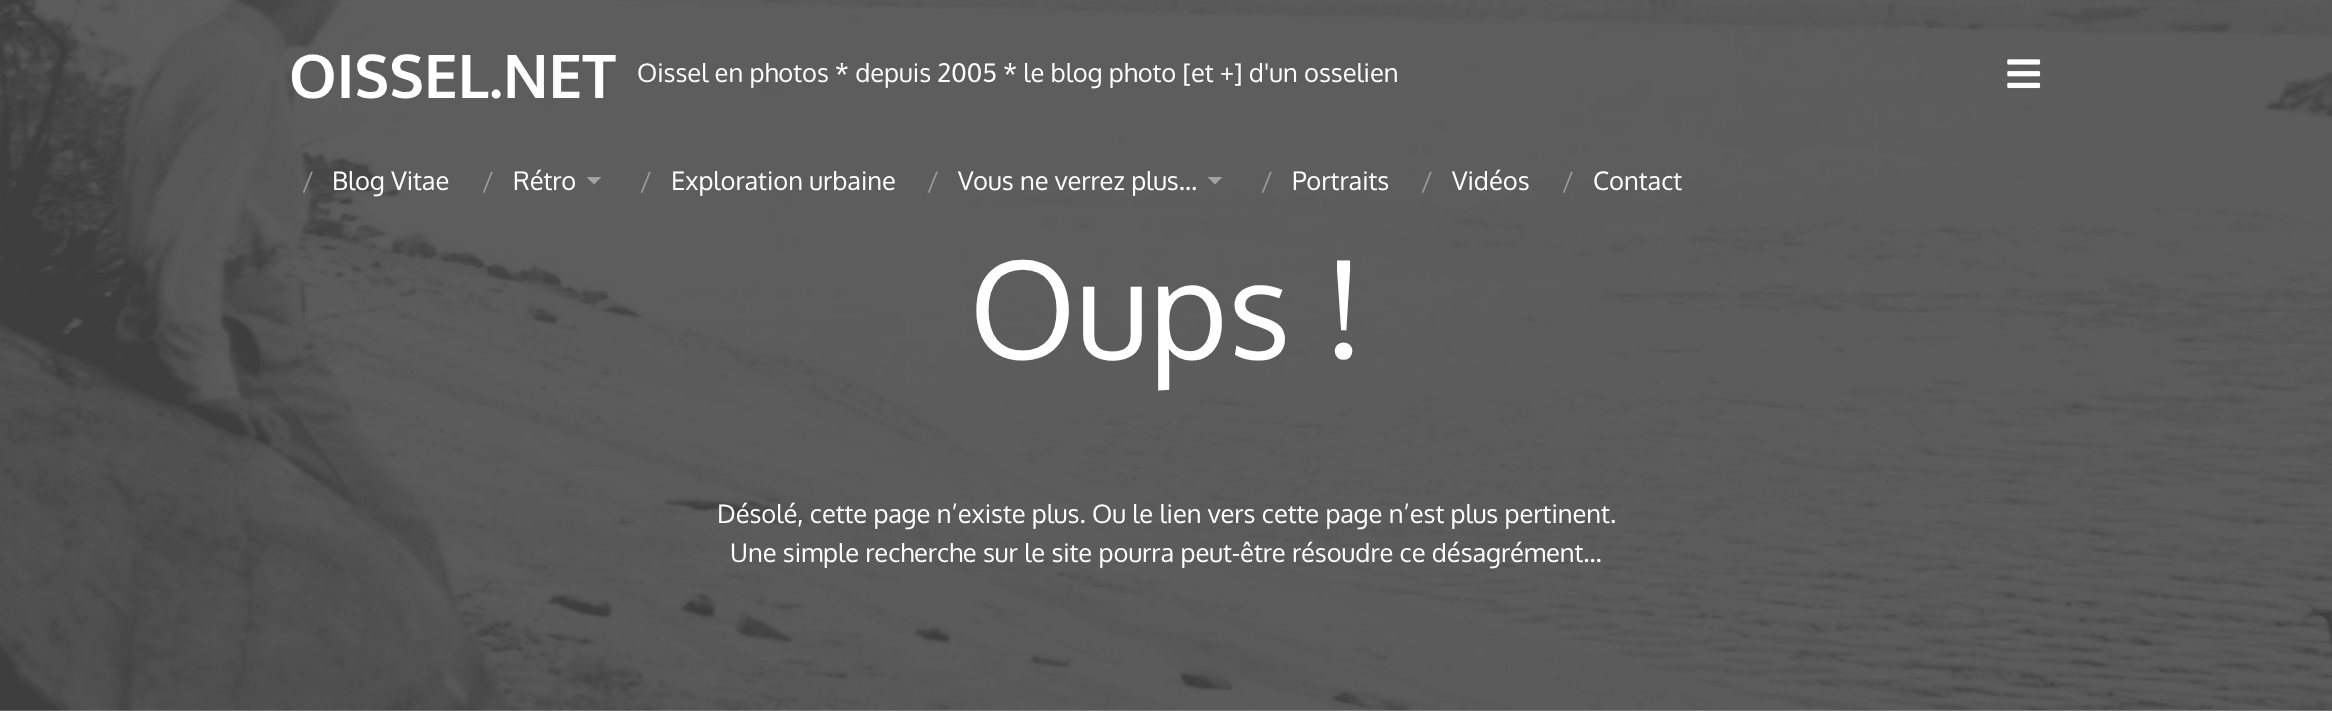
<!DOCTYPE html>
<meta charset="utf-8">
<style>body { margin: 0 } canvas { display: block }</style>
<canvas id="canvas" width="2332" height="711"></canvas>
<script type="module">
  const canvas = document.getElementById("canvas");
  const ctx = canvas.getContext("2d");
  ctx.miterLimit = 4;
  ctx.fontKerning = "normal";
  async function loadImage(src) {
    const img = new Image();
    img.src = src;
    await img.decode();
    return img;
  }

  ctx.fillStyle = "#ffffff";
  ctx.fillRect(0, 0, 2332, 711);
  ctx.drawImage(await loadImage("img1.png"), 0, 0, 2332, 711);
  ctx.font = "bold 60px Oxygen";
  ctx.fillText("OISSEL.NET", 289, 98);
  ctx.font = "25.5px Oxygen";
  ctx.fillText("Oissel en photos * depuis 2005 * le blog photo [et +] d'un osselien", 637, 82);
  ctx.drawImage(await loadImage("img2.png"), 2007, 59, 34, 30);
  ctx.fillStyle = "#9a9a9a";
  ctx.fillText("/", 302, 190);
  ctx.fillStyle = "#ffffff";
  ctx.fillText("Blog Vitae", 332, 190);
  ctx.fillStyle = "#9a9a9a";
  ctx.fillText("/", 482, 190);
  ctx.fillStyle = "#ffffff";
  ctx.fillText("Rétro", 513, 190);
  ctx.fillStyle = "#a3a3a3";
  ctx.beginPath();
  ctx.moveTo(586.5, 177);
  ctx.lineTo(601.5, 177);
  ctx.lineTo(594, 184.5);
  ctx.closePath();
  ctx.fill();
  ctx.fillStyle = "#9a9a9a";
  ctx.fillText("/", 640, 190);
  ctx.fillStyle = "#ffffff";
  ctx.fillText("Exploration urbaine", 671, 190);
  ctx.fillStyle = "#9a9a9a";
  ctx.fillText("/", 927, 190);
  ctx.fillStyle = "#ffffff";
  ctx.fillText("Vous ne verrez plus…", 958, 190);
  ctx.fillStyle = "#a3a3a3";
  ctx.beginPath();
  ctx.moveTo(1207.5, 177);
  ctx.lineTo(1222.5, 177);
  ctx.lineTo(1215, 184.5);
  ctx.closePath();
  ctx.fill();
  ctx.fillStyle = "#9a9a9a";
  ctx.fillText("/", 1261, 190);
  ctx.fillStyle = "#ffffff";
  ctx.fillText("Portraits", 1292, 190);
  ctx.fillStyle = "#9a9a9a";
  ctx.fillText("/", 1421, 190);
  ctx.fillStyle = "#ffffff";
  ctx.fillText("Vidéos", 1452, 190);
  ctx.fillStyle = "#9a9a9a";
  ctx.fillText("/", 1562, 190);
  ctx.fillStyle = "#ffffff";
  ctx.fillText("Contact", 1593, 190);
  ctx.font = "135px Oxygen";
  ctx.fillText("Oups !", 969, 359);
  ctx.font = "25.5px Oxygen";
  ctx.fillText("Désolé, cette page n’existe plus. Ou le lien vers cette page n’est plus pertinent.", 717, 523);
  ctx.fillText("Une simple recherche sur le site pourra peut-être résoudre ce désagrément…", 730, 562);
</script>
